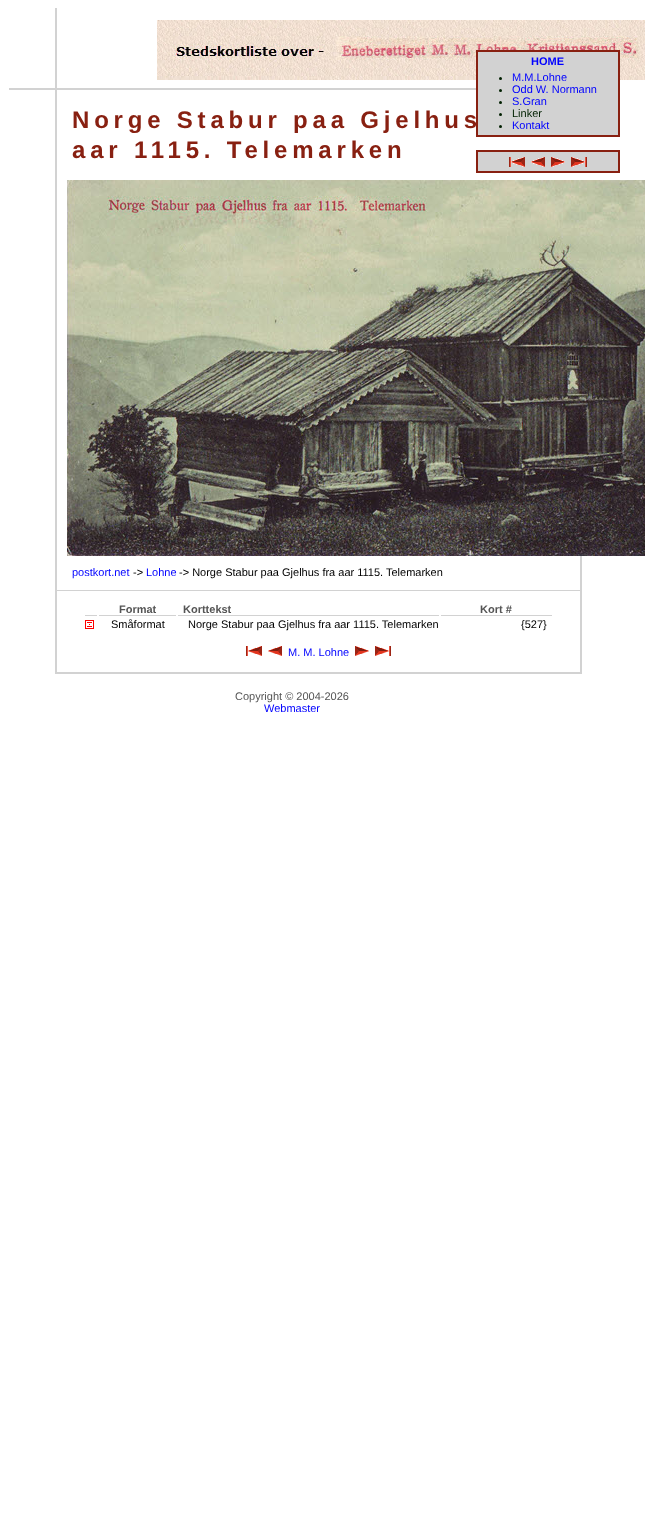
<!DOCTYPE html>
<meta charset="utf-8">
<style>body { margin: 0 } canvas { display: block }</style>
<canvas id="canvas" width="645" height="1534"></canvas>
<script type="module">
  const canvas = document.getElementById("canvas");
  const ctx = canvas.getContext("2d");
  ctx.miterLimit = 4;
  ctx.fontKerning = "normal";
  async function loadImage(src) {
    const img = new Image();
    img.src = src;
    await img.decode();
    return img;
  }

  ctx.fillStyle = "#ffffff";
  ctx.fillRect(0, 0, 645, 1534);
  ctx.strokeStyle = "#d2d2d2";
  ctx.lineWidth = 2;
  ctx.strokeRect(56, 89, 525, 584);
  ctx.fillStyle = "#d2d2d2";
  ctx.fillRect(55, 8, 2, 82);
  ctx.fillRect(9, 88, 48, 2);
  ctx.drawImage(await loadImage("img1.png"), 157, 20, 488, 60);
  ctx.fillStyle = "#ffffff";
  ctx.fillRect(580, 90, 2, 90);
  ctx.letterSpacing = "4.8px";
  ctx.font = "bold 24px Liberation Sans";
  ctx.fillStyle = "#882011";
  ctx.fillText("Norge Stabur paa Gjelhus", 72, 128);
  ctx.fillStyle = "#d2d2d2";
  ctx.beginPath();
  ctx.rect(477, 51, 142, 85);
  ctx.fill();
  ctx.strokeStyle = "#882011";
  ctx.stroke();
  ctx.letterSpacing = "0px";
  ctx.font = "bold 11px Liberation Sans";
  ctx.fillStyle = "#0000ff";
  ctx.fillText("HOME", 531, 65);
  ctx.fillStyle = "#012000";
  ctx.beginPath();
  ctx.arc(500.5, 78.5, 1.5, 0, Math.PI * 2);
  ctx.fill();
  ctx.font = "11px Liberation Sans";
  ctx.fillStyle = "#0000ff";
  ctx.fillText("M.M.Lohne", 512, 81);
  ctx.fillStyle = "#012000";
  ctx.beginPath();
  ctx.arc(500.5, 90.5, 1.5, 0, Math.PI * 2);
  ctx.fill();
  ctx.fillStyle = "#0000ff";
  ctx.fillText("Odd W. Normann", 512, 93);
  ctx.fillStyle = "#012000";
  ctx.beginPath();
  ctx.arc(500.5, 102.5, 1.5, 0, Math.PI * 2);
  ctx.fill();
  ctx.fillStyle = "#0000ff";
  ctx.fillText("S.Gran", 512, 105);
  ctx.fillStyle = "#012000";
  ctx.beginPath();
  ctx.arc(500.5, 114.5, 1.5, 0, Math.PI * 2);
  ctx.fill();
  ctx.fillText("Linker", 512, 117);
  ctx.beginPath();
  ctx.arc(500.5, 126.5, 1.5, 0, Math.PI * 2);
  ctx.fill();
  ctx.fillStyle = "#0000ff";
  ctx.fillText("Kontakt", 512, 129);
  ctx.fillStyle = "#d2d2d2";
  ctx.beginPath();
  ctx.rect(477, 151, 142, 21);
  ctx.fill();
  ctx.stroke();
  ctx.drawImage(await loadImage("img2.png"), 509, 157, 16, 10);
  ctx.drawImage(await loadImage("img3.png"), 531, 157, 14, 10);
  ctx.drawImage(await loadImage("img4.png"), 551, 157, 14, 10);
  ctx.drawImage(await loadImage("img5.png"), 571, 157, 16, 10);
  ctx.fillStyle = "#0000ff";
  ctx.fillText("postkort.net", 72, 576);
  ctx.fillStyle = "#000000";
  ctx.fillText("->", 133, 576);
  ctx.fillStyle = "#0000ff";
  ctx.fillText("Lohne", 146, 576);
  ctx.fillStyle = "#000000";
  ctx.fillText("-> Norge Stabur paa Gjelhus fra aar 1115. Telemarken", 179, 576);
  ctx.fillStyle = "#d2d2d2";
  ctx.fillRect(57, 590, 523, 1);
  ctx.fillRect(99, 615, 77, 1);
  ctx.font = "bold 11px Liberation Sans";
  ctx.fillStyle = "#555555";
  ctx.fillText("Format", 119, 613);
  ctx.fillStyle = "#d2d2d2";
  ctx.fillRect(178, 615, 261, 1);
  ctx.fillStyle = "#555555";
  ctx.fillText("Korttekst", 183, 613);
  ctx.fillStyle = "#d2d2d2";
  ctx.fillRect(441, 615, 111, 1);
  ctx.fillStyle = "#555555";
  ctx.fillText("Kort #", 480, 613);
  ctx.fillStyle = "#d2d2d2";
  ctx.fillRect(85, 615, 12, 1);
  ctx.drawImage(await loadImage("img6.png"), 85, 620, 9, 9);
  ctx.font = "11px Liberation Sans";
  ctx.fillStyle = "#000000";
  ctx.fillText("Småformat", 111, 628);
  ctx.fillText("Norge Stabur paa Gjelhus fra aar 1115. Telemarken", 188, 628);
  ctx.fillText("{527}", 521, 628);
  ctx.drawImage(await loadImage("img7.png"), 246, 646, 16, 10);
  ctx.drawImage(await loadImage("img8.png"), 268, 646, 14, 10);
  ctx.fillStyle = "#0000ff";
  ctx.fillText("M. M. Lohne", 288, 656);
  ctx.drawImage(await loadImage("img9.png"), 355, 646, 14, 10);
  ctx.drawImage(await loadImage("img10.png"), 375, 646, 16, 10);
  ctx.letterSpacing = "4.8px";
  ctx.font = "bold 24px Liberation Sans";
  ctx.fillStyle = "#882011";
  ctx.fillText("aar 1115. Telemarken", 72, 158);
  ctx.drawImage(await loadImage("img11.png"), 67, 180, 578, 376);
  ctx.letterSpacing = "0px";
  ctx.font = "11px Liberation Sans";
  ctx.fillStyle = "#555555";
  ctx.fillText("Copyright © 2004-2026", 235, 700);
  ctx.fillStyle = "#0000ff";
  ctx.fillText("Webmaster", 264, 712);
</script>
